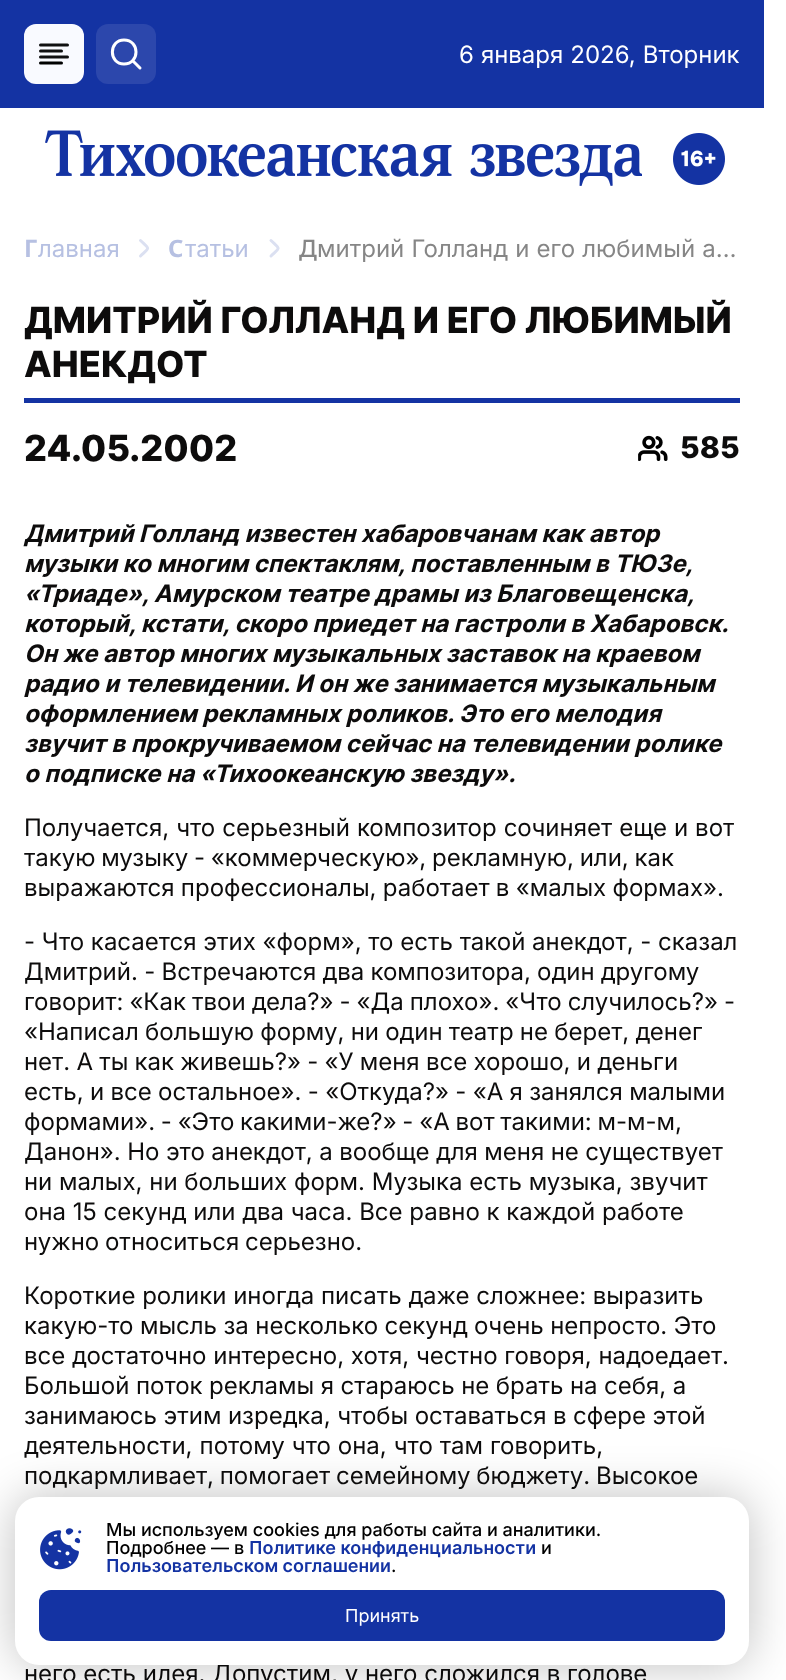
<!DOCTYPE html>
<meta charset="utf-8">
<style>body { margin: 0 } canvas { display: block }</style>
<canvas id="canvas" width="786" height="1680"></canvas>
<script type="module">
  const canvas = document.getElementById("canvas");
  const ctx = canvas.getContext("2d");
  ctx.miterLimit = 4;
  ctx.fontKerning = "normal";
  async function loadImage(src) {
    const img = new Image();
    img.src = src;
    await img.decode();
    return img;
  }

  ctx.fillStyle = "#ffffff";
  ctx.fillRect(0, 0, 786, 1680);
  ctx.fillStyle = "#1433a3";
  ctx.fillRect(0, 0, 764, 108);
  ctx.fillStyle = "#f9faff";
  ctx.beginPath();
  ctx.roundRect(24, 24, 60, 60, 12);
  ctx.fill();
  ctx.beginPath();
  ctx.moveTo(61.5, 51);
  ctx.lineTo(40.5, 51);
  ctx.moveTo(67.5, 45);
  ctx.lineTo(40.5, 45);
  ctx.moveTo(67.5, 57);
  ctx.lineTo(40.5, 57);
  ctx.strokeStyle = "#101011";
  ctx.lineWidth = 3;
  ctx.lineCap = "round";
  ctx.lineJoin = "round";
  ctx.stroke();
  ctx.beginPath();
  ctx.moveTo(61.5, 63);
  ctx.lineTo(40.5, 63);
  ctx.strokeStyle = "#000000";
  ctx.stroke();
  ctx.fillStyle = "#2c47ac";
  ctx.beginPath();
  ctx.roundRect(96, 24, 60, 60, 12);
  ctx.fill();
  ctx.beginPath();
  ctx.moveTo(124, 64);
  ctx.bezierCurveTo(140, 64, 140, 40, 124, 40);
  ctx.bezierCurveTo(108.5, 40, 108.5, 64, 124, 64);
  ctx.closePath();
  ctx.moveTo(133, 61);
  ctx.lineTo(140, 68);
  ctx.strokeStyle = "#ffffff";
  ctx.stroke();
  ctx.wordSpacing = "0.25px";
  ctx.font = "24px Inter";
  ctx.fillStyle = "#ffffff";
  ctx.fillText("6 января 2026, Вторник", 459, 63);
  ctx.drawImage(await loadImage("img1.png"), 45, 130, 597, 56);
  ctx.drawImage(await loadImage("img2.png"), 673, 133, 52, 52);
  ctx.wordSpacing = "0px";
  ctx.font = "bold 24px Noto Sans";
  ctx.fillStyle = "#b6c0e2";
  ctx.fillText("Г", 24, 257);
  ctx.font = "24px Inter";
  ctx.fillText("лавная", 38, 257);
  ctx.beginPath();
  ctx.moveTo(140.5, 256);
  ctx.bezierCurveTo(150, 247, 150, 249.5, 140.5, 240.5);
  ctx.strokeStyle = "#dbe0f1";
  ctx.stroke();
  ctx.font = "bold 24px Noto Sans";
  ctx.fillText("С", 168, 257);
  ctx.font = "24px Inter";
  ctx.fillText("татьи", 185, 257);
  ctx.beginPath();
  ctx.moveTo(271, 256);
  ctx.bezierCurveTo(280.5, 247, 280.5, 249.5, 271, 240.5);
  ctx.stroke();
  ctx.save();
  ctx.beginPath();
  ctx.rect(299, 233, 441, 30);
  ctx.clip();
  ctx.font = "500 24px Noto Sans";
  ctx.fillStyle = "#868686";
  ctx.fillText("Д", 299, 257);
  ctx.restore();
  ctx.wordSpacing = "0.5px";
  ctx.fillStyle = "#868686";
  ctx.fillText("митрий Голланд и его любимый а…", 317, 257);
  ctx.fillStyle = "#1433a3";
  ctx.fillRect(24, 398, 716, 5);
  ctx.wordSpacing = "0px";
  ctx.font = "800 36px Inter";
  ctx.fillStyle = "#0d0c0c";
  ctx.fillText("ДМИТРИЙ ГОЛЛАНД И ЕГО ЛЮБИМЫЙ", 24, 333);
  ctx.fillText("АНЕКДОТ", 24, 377);
  ctx.fillText("24.05.2002", 24, 461);
  ctx.drawImage(await loadImage("img3.png"), 638, 435, 30, 26);
  ctx.font = "800 30px Inter";
  ctx.fillText("585", 680, 458);
  ctx.font = "italic bold 24px Inter";
  ctx.fillText("Дмитрий Голланд известен хабаровчанам как автор", 24, 542);
  ctx.fillText("музыки ко многим спектаклям, поставленным в ТЮЗе,", 24, 572);
  ctx.fillText("«Триаде», Амурском театре драмы из Благовещенска,", 24, 602);
  ctx.fillText("который, кстати, скоро приедет на гастроли в Хабаровск.", 24, 632);
  ctx.fillText("Он же автор многих музыкальных заставок на краевом", 24, 662);
  ctx.fillText("радио и телевидении. И он же занимается музыкальным", 24, 692);
  ctx.fillText("оформлением рекламных роликов. Это его мелодия", 24, 722);
  ctx.fillText("звучит в прокручиваемом сейчас на телевидении ролике", 24, 752);
  ctx.fillText("о подписке на «Тихоокеанскую звезду».", 24, 782);
  ctx.wordSpacing = "0.25px";
  ctx.font = "24px Inter";
  ctx.fillText("Получается, что серьезный композитор сочиняет еще и вот", 24, 836);
  ctx.wordSpacing = "-1px";
  ctx.fillText("такую музыку - «коммерческую», рекламную, или, как", 24, 866);
  ctx.wordSpacing = "-0.5px";
  ctx.fillText("выражаются профессионалы, работает в «малых формах».", 24, 896);
  ctx.wordSpacing = "0px";
  ctx.fillText("- Что касается этих «форм», то есть такой анекдот, - сказал", 24, 950);
  ctx.wordSpacing = "-0.5px";
  ctx.fillText("Дмитрий. - Встречаются два композитора, один другому", 24, 980);
  ctx.wordSpacing = "-0.75px";
  ctx.fillText("говорит: «Как твои дела?» - «Да плохо». «Что случилось?» -", 24, 1010);
  ctx.wordSpacing = "-0.5px";
  ctx.fillText("«Написал большую форму, ни один театр не берет, денег", 24, 1040);
  ctx.fillText("нет. А ты как живешь?» - «У меня все хорошо, и деньги", 24, 1070);
  ctx.wordSpacing = "-0.4px";
  ctx.fillText("есть, и все остальное». - «Откуда?» - «А я занялся малыми", 24, 1100);
  ctx.wordSpacing = "-1px";
  ctx.fillText("формами». - «Это какими-же?» - «А вот такими: м-м-м,", 24, 1130);
  ctx.wordSpacing = "-0.25px";
  ctx.fillText("Данон». Но это анекдот, а вообще для меня не существует", 24, 1160);
  ctx.wordSpacing = "0px";
  ctx.fillText("ни малых, ни больших форм. Музыка есть музыка, звучит", 24, 1190);
  ctx.fillText("она 15 секунд или два часа. Все равно к каждой работе", 24, 1220);
  ctx.wordSpacing = "-1px";
  ctx.fillText("нужно относиться серьезно.", 24, 1250);
  ctx.wordSpacing = "0px";
  ctx.fillText("Короткие ролики иногда писать даже сложнее: выразить", 24, 1304);
  ctx.wordSpacing = "-0.25px";
  ctx.fillText("какую-то мысль за несколько секунд очень непросто. Это", 24, 1334);
  ctx.wordSpacing = "0px";
  ctx.fillText("все достаточно интересно, хотя, честно говоря, надоедает.", 24, 1364);
  ctx.wordSpacing = "-0.25px";
  ctx.fillText("Большой поток рекламы я стараюсь не брать на себя, а", 24, 1394);
  ctx.fillText("занимаюсь этим изредка, чтобы оставаться в сфере этой", 24, 1424);
  ctx.wordSpacing = "0.25px";
  ctx.fillText("деятельности, потому что она, что там говорить,", 24, 1454);
  ctx.wordSpacing = "-1px";
  ctx.fillText("подкармливает, помогает семейному бюджету. Высокое", 24, 1484);
  ctx.wordSpacing = "0px";
  ctx.fillText("него есть идея. Допустим, у него сложился в голове", 24, 1682);
  ctx.fillStyle = "rgba(0, 0, 0, 0.25)";
  ctx.filter = "blur(24px)";
  ctx.beginPath();
  ctx.roundRect(15, 1497, 734, 168, 24);
  ctx.fill();
  ctx.filter = "none";
  ctx.fillStyle = "#ffffff";
  ctx.beginPath();
  ctx.roundRect(15, 1497, 734, 168, 24);
  ctx.fill();
  ctx.drawImage(await loadImage("img4.png"), 40, 1528, 42, 42);
  ctx.font = "500 18px Inter";
  ctx.fillStyle = "#000000";
  ctx.fillText("Мы используем cookies для работы сайта и аналитики.", 106, 1536);
  ctx.fillText("Подробнее — в", 106, 1554);
  ctx.font = "600 18px Inter";
  ctx.fillStyle = "#1433a3";
  ctx.fillText("Политике конфиденциальности", 249, 1554);
  ctx.font = "500 18px Inter";
  ctx.fillStyle = "#000000";
  ctx.fillText("и", 541, 1554);
  ctx.font = "600 18px Inter";
  ctx.fillStyle = "#1433a3";
  ctx.fillText("Пользовательском соглашении", 106, 1572);
  ctx.font = "500 18px Inter";
  ctx.fillStyle = "#000000";
  ctx.fillText(".", 391, 1572);
  ctx.fillStyle = "#1433a3";
  ctx.beginPath();
  ctx.roundRect(39, 1590, 686, 51, 12);
  ctx.fill();
  ctx.font = "18px Inter";
  ctx.fillStyle = "#ffffff";
  ctx.fillText("Принять", 345, 1622);
</script>
